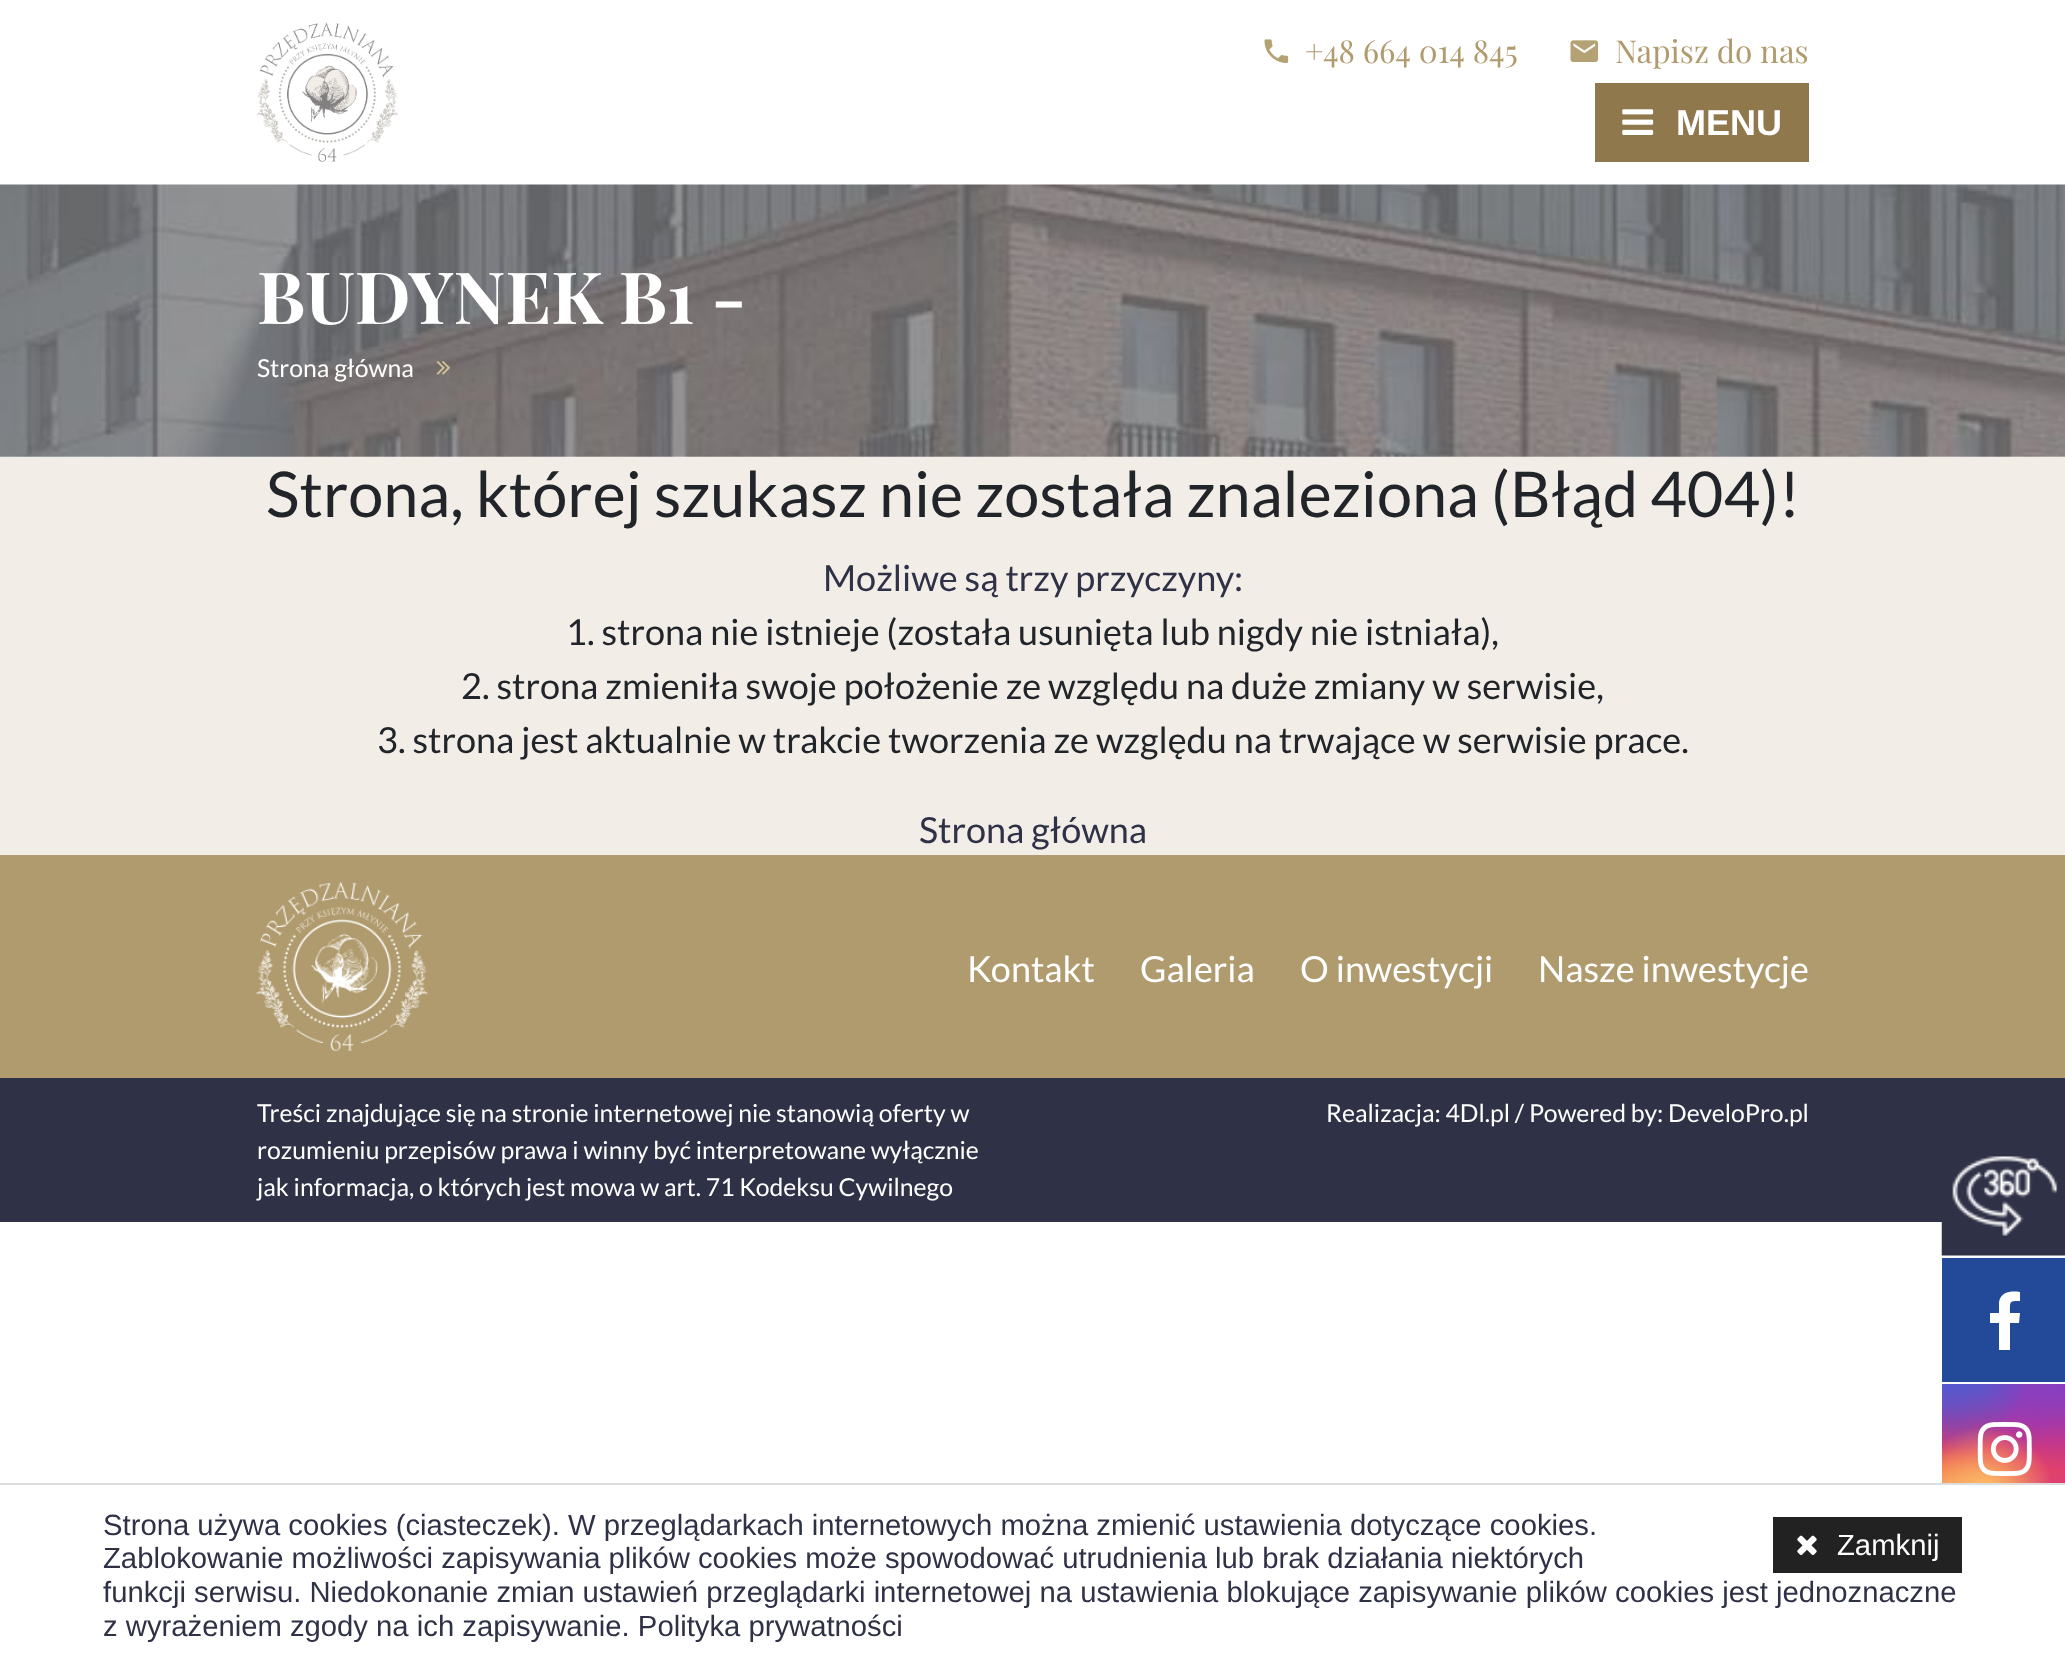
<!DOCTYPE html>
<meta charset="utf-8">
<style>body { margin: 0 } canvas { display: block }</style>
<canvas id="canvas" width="2065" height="1664"></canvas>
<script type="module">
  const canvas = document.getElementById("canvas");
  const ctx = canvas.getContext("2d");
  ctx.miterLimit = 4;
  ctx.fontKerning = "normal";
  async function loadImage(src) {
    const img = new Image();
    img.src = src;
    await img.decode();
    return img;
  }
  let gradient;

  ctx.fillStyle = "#ffffff";
  ctx.fillRect(0, 0, 2065, 1664);
  ctx.drawImage(await loadImage("img1.png"), 256, 22, 143, 140);
  ctx.drawImage(await loadImage("img2.png"), 1264, 39, 25, 24);
  ctx.font = "31.5px Playfair Display";
  ctx.fillStyle = "#b09b6e";
  ctx.fillText("+48 664 014 845", 1305, 63);
  ctx.drawImage(await loadImage("img3.png"), 1570, 40, 29, 22);
  ctx.fillText("Napisz do nas", 1615, 63);
  ctx.fillStyle = "#8f784c";
  ctx.fillRect(1595, 83, 214, 79);
  ctx.drawImage(await loadImage("img4.png"), 1622, 109, 32, 26);
  ctx.font = "bold 36px Liberation Sans";
  ctx.fillStyle = "#ffffff";
  ctx.fillText("MENU", 1676, 135);
  ctx.drawImage(await loadImage("img5.png"), 0, 184, 2065, 273);
  ctx.font = "bold 72px Playfair Display";
  ctx.fillText("BUDYNEK B1 -", 257, 324);
  ctx.font = "24.75px Lato";
  ctx.fillText("Strona główna", 257, 377);
  ctx.drawImage(await loadImage("img6.png"), 436, 361, 14, 14);
  ctx.fillStyle = "#f2ede7";
  ctx.fillRect(0, 457, 2065, 398);
  ctx.font = "63px Lato";
  ctx.fillStyle = "#212529";
  ctx.fillText("Strona, której szukasz nie została znaleziona (Błąd 404)!", 266, 517);
  ctx.font = "36px Lato";
  ctx.fillStyle = "#2f3147";
  ctx.fillText("Możliwe są trzy przyczyny:", 823, 591);
  ctx.fillStyle = "#212529";
  ctx.fillText("1. strona nie istnieje (została usunięta lub nigdy nie istniała),", 566, 645);
  ctx.fillText("2. strona zmieniła swoje położenie ze względu na duże zmiany w serwisie,", 461, 699);
  ctx.fillText("3. strona jest aktualnie w trakcie tworzenia ze względu na trwające w serwisie prace.", 377, 753);
  ctx.fillStyle = "#2f3147";
  ctx.fillText("Strona główna", 919, 843);
  ctx.fillStyle = "#b09b6e";
  ctx.fillRect(0, 855, 2065, 223);
  ctx.drawImage(await loadImage("img7.png"), 256, 882, 172, 169);
  ctx.fillStyle = "#ffffff";
  ctx.fillText("Kontakt", 967, 982);
  ctx.fillText("Galeria", 1140, 982);
  ctx.fillText("O inwestycji", 1300, 982);
  ctx.fillText("Nasze inwestycje", 1538, 982);
  ctx.fillStyle = "#2f3146";
  ctx.fillRect(0, 1078, 2065, 144);
  ctx.font = "24.75px Lato";
  ctx.fillStyle = "#ffffff";
  ctx.fillText("Treści znajdujące się na stronie internetowej nie stanowią oferty w", 257, 1122);
  ctx.fillText("rozumieniu przepisów prawa i winny być interpretowane wyłącznie", 257, 1159);
  ctx.fillText("jak informacja, o których jest mowa w art. 71 Kodeksu Cywilnego", 257, 1196);
  ctx.fillText("Realizacja: 4Dl.pl / Powered by: DeveloPro.pl", 1326, 1122);
  ctx.drawImage(await loadImage("img8.png"), 1941, 1156, 124, 100);
  ctx.fillStyle = "#234999";
  ctx.fillRect(1942, 1258, 123, 124);
  ctx.fillStyle = "#ffffff";
  ctx.beginPath();
  ctx.moveTo(2020, 1292);
  ctx.lineTo(2020, 1301);
  ctx.bezierCurveTo(2009, 1301, 2010, 1301, 2010, 1313);
  ctx.lineTo(2020, 1313);
  ctx.lineTo(2019, 1323);
  ctx.lineTo(2010, 1323);
  ctx.lineTo(2010, 1350);
  ctx.lineTo(1999, 1350);
  ctx.lineTo(1999, 1323);
  ctx.lineTo(1990, 1323);
  ctx.lineTo(1990, 1313);
  ctx.lineTo(1999, 1313);
  ctx.lineTo(1999, 1302);
  ctx.bezierCurveTo(2001, 1291, 2012, 1291, 2020, 1292);
  ctx.closePath();
  ctx.fill();
  gradient = ctx.createLinearGradient(2004, 1384, 2004, 1508);
  gradient.addColorStop(0, "#6559ca");
  gradient.addColorStop(0.3, "#bc318f");
  gradient.addColorStop(0.5, "#e33f5f");
  gradient.addColorStop(0.7, "#f77638");
  gradient.addColorStop(1, "#fec66d");
  ctx.fillStyle = gradient;
  ctx.fillRect(1942, 1384, 123, 99);
  gradient = ctx.createRadialGradient(2066, 1508, 0, 2066, 1508, 175);
  gradient.addColorStop(0, "#d9317a");
  gradient.addColorStop(1, "rgba(217, 49, 122, 0)");
  ctx.fillStyle = gradient;
  ctx.fillRect(1942, 1384, 123, 99);
  gradient = ctx.createRadialGradient(2016, 679.5, 0, 2016, 679.5, 105);
  gradient.addColorStop(0, "#893dc2");
  gradient.addColorStop(0.5, "rgba(137, 61, 194, 0)");
  ctx.fillStyle = gradient;
  ctx.beginPath();
  ctx.rect(1971, 1384, 90, 78);
  ctx.save();
  ctx.clip();
  ctx.scale(1, 210 / 105);
  ctx.fillRect(0, 0, 2065, 832);
  ctx.restore();
  gradient = ctx.createRadialGradient(2066, 1384, 0, 2066, 1384, 175);
  gradient.addColorStop(0, "#893dc2");
  gradient.addColorStop(0.5, "rgba(137, 61, 194, 0)");
  ctx.fillStyle = gradient;
  ctx.fillRect(1988, 1384, 77, 85);
  gradient = ctx.createRadialGradient(1967, 703.73, 0, 1967, 703.73, 140);
  gradient.addColorStop(0, "#5258cf");
  gradient.addColorStop(0.5, "rgba(82, 88, 207, 0)");
  ctx.fillStyle = gradient;
  ctx.beginPath();
  ctx.rect(1942, 1384, 83, 67);
  ctx.save();
  ctx.clip();
  ctx.scale(1, 263 / 140);
  ctx.fillRect(0, 0, 2065, 886);
  ctx.restore();
  gradient = ctx.createRadialGradient(1942, 1081.16, 0, 1942, 1081.16, 175);
  gradient.addColorStop(0, "#5258cf");
  gradient.addColorStop(0.5, "rgba(82, 88, 207, 0)");
  ctx.fillStyle = gradient;
  ctx.beginPath();
  ctx.rect(1942, 1384, 80, 76);
  ctx.save();
  ctx.clip();
  ctx.scale(1, 219 / 175);
  ctx.fillRect(0, 0, 2065, 1330);
  ctx.restore();
  gradient = ctx.createRadialGradient(1942, 1557, 0, 1942, 1557, 213);
  gradient.addColorStop(0, "#fec564");
  gradient.addColorStop(0.5, "rgba(254, 197, 100, 0)");
  ctx.fillStyle = gradient;
  ctx.fillRect(1942, 1453, 73, 30);
  gradient = ctx.createRadialGradient(1985, 1495, 0, 1985, 1495, 137);
  gradient.addColorStop(0, "#fec564");
  gradient.addColorStop(0.5, "rgba(254, 197, 100, 0)");
  ctx.fillStyle = gradient;
  ctx.fillRect(1942, 1428, 109, 55);
  ctx.drawImage(await loadImage("img9.png"), 1977, 1422, 55, 54);
  ctx.fillStyle = "#dddddd";
  ctx.fillRect(0, 1483, 2065, 2);
  ctx.font = "29.25px Liberation Sans";
  ctx.fillStyle = "#2f3147";
  ctx.fillText("Strona używa cookies (ciasteczek). W przeglądarkach internetowych można zmienić ustawienia dotyczące cookies.", 103, 1535);
  ctx.fillText("Zablokowanie możliwości zapisywania plików cookies może spowodować utrudnienia lub brak działania niektórych", 103, 1568);
  ctx.fillStyle = "#222222";
  ctx.fillRect(1773, 1517, 189, 56);
  ctx.drawImage(await loadImage("img10.png"), 1797, 1535, 20, 20);
  ctx.fillStyle = "#ffffff";
  ctx.fillText("Zamknij", 1837, 1555);
  ctx.fillStyle = "#2f3147";
  ctx.fillText("funkcji serwisu. Niedokonanie zmian ustawień przeglądarki internetowej na ustawienia blokujące zapisywanie plików cookies jest jednoznaczne", 103, 1602);
  ctx.fillText("z wyrażeniem zgody na ich zapisywanie. Polityka prywatności", 103, 1636);
</script>
